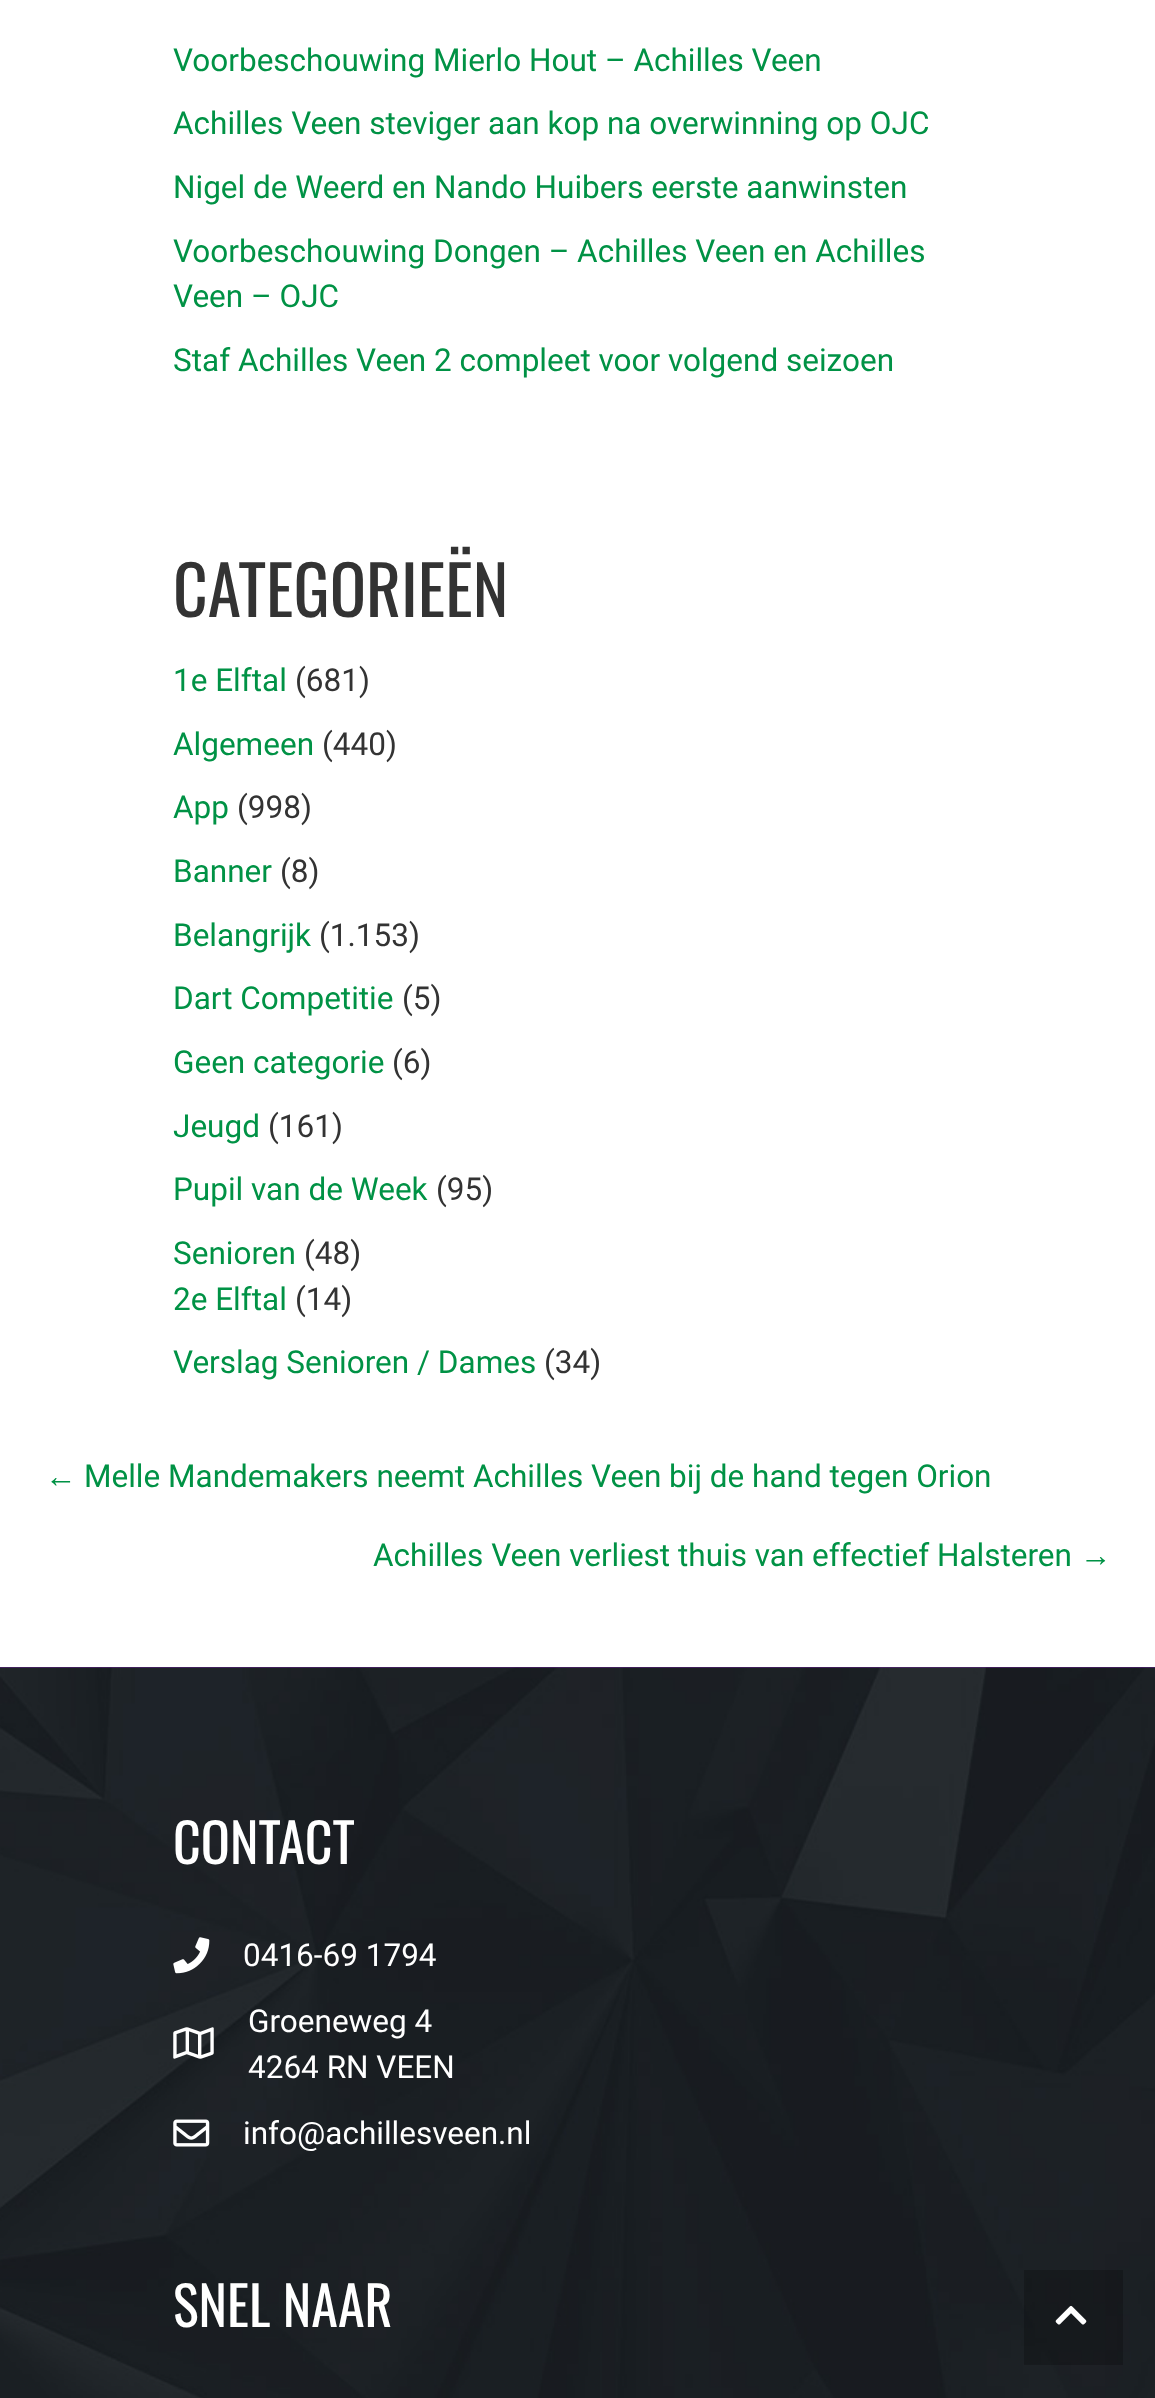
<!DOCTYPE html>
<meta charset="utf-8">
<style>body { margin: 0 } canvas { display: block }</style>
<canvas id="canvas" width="1155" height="2398"></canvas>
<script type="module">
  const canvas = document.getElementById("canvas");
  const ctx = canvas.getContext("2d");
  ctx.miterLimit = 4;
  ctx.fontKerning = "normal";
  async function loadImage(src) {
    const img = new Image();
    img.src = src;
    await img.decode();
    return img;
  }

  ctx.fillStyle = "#ffffff";
  ctx.fillRect(0, 0, 1155, 2398);
  ctx.font = "31.5px Roboto";
  ctx.fillStyle = "#009245";
  ctx.fillText("Voorbeschouwing Mierlo Hout – Achilles Veen", 173, 71);
  ctx.fillText("Achilles Veen steviger aan kop na overwinning op OJC", 173, 134);
  ctx.fillText("Nigel de Weerd en Nando Huibers eerste aanwinsten", 173, 198);
  ctx.fillText("Voorbeschouwing Dongen – Achilles Veen en Achilles", 173, 262);
  ctx.fillText("Veen – OJC", 173, 307);
  ctx.fillText("Staf Achilles Veen 2 compleet voor volgend seizoen", 173, 371);
  ctx.font = "67.5px Oswald";
  ctx.fillStyle = "#333333";
  ctx.fillText("CATEGORIEËN", 173, 617);
  ctx.font = "31.5px Roboto";
  ctx.fillStyle = "#009245";
  ctx.fillText("1e Elftal", 173, 691);
  ctx.fillStyle = "#333333";
  ctx.fillText("(681)", 295, 691);
  ctx.fillStyle = "#009245";
  ctx.fillText("Algemeen", 173, 755);
  ctx.fillStyle = "#333333";
  ctx.fillText("(440)", 322, 755);
  ctx.fillStyle = "#009245";
  ctx.fillText("App", 173, 818);
  ctx.fillStyle = "#333333";
  ctx.fillText("(998)", 237, 818);
  ctx.fillStyle = "#009245";
  ctx.fillText("Banner", 173, 882);
  ctx.fillStyle = "#333333";
  ctx.fillText("(8)", 280, 882);
  ctx.fillStyle = "#009245";
  ctx.fillText("Belangrijk", 173, 946);
  ctx.fillStyle = "#333333";
  ctx.fillText("(1.153)", 319, 946);
  ctx.fillStyle = "#009245";
  ctx.fillText("Dart Competitie", 173, 1009);
  ctx.fillStyle = "#333333";
  ctx.fillText("(5)", 402, 1009);
  ctx.fillStyle = "#009245";
  ctx.fillText("Geen categorie", 173, 1073);
  ctx.fillStyle = "#333333";
  ctx.fillText("(6)", 392, 1073);
  ctx.fillStyle = "#009245";
  ctx.fillText("Jeugd", 173, 1137);
  ctx.fillStyle = "#333333";
  ctx.fillText("(161)", 268, 1137);
  ctx.fillStyle = "#009245";
  ctx.fillText("Pupil van de Week", 173, 1200);
  ctx.fillStyle = "#333333";
  ctx.fillText("(95)", 436, 1200);
  ctx.fillStyle = "#009245";
  ctx.fillText("Senioren", 173, 1264);
  ctx.fillStyle = "#333333";
  ctx.fillText("(48)", 304, 1264);
  ctx.fillStyle = "#009245";
  ctx.fillText("2e Elftal", 173, 1310);
  ctx.fillStyle = "#333333";
  ctx.fillText("(14)", 295, 1310);
  ctx.fillStyle = "#009245";
  ctx.fillText("Verslag Senioren / Dames", 173, 1373);
  ctx.fillStyle = "#333333";
  ctx.fillText("(34)", 544, 1373);
  ctx.font = "31.5px Liberation Sans";
  ctx.fillStyle = "#009245";
  ctx.fillText("←", 45, 1487);
  ctx.font = "31.5px Roboto";
  ctx.fillText("Melle Mandemakers neemt Achilles Veen bij de hand tegen Orion", 84, 1487);
  ctx.fillText("Achilles Veen verliest thuis van effectief Halsteren", 373, 1566);
  ctx.font = "31.5px Liberation Sans";
  ctx.fillText("→", 1080, 1566);
  ctx.fillStyle = "#652190";
  ctx.fillRect(0, 1667, 1155, 1);
  ctx.drawImage(await loadImage("img1.png"), 0, 1667, 1155, 731);
  ctx.font = "54px Oswald";
  ctx.fillStyle = "#ffffff";
  ctx.fillText("CONTACT", 173, 1864);
  ctx.drawImage(await loadImage("img2.png"), 173, 1937, 37, 37);
  ctx.font = "31.5px Roboto";
  ctx.fillText("0416-69 1794", 243, 1966);
  ctx.drawImage(await loadImage("img3.png"), 173, 2027, 41, 32);
  ctx.fillText("Groeneweg 4", 248, 2032);
  ctx.fillText("4264 RN VEEN", 248, 2078);
  ctx.drawImage(await loadImage("img4.png"), 173, 2119, 37, 28);
  ctx.fillText("info@achillesveen.nl", 243, 2144);
  ctx.font = "54px Oswald";
  ctx.fillText("SNEL NAAR", 173, 2327);
  ctx.fillStyle = "rgba(0, 0, 0, 0.2)";
  ctx.fillRect(1024, 2270, 99, 95);
  ctx.drawImage(await loadImage("img5.png"), 1055, 2305, 32, 20);
</script>
